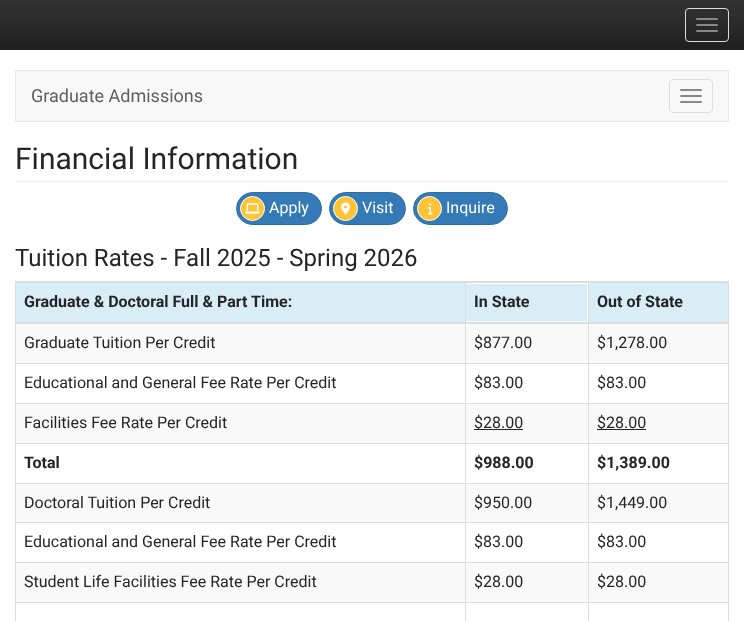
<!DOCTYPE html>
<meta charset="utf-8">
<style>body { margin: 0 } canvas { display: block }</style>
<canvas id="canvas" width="744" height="621"></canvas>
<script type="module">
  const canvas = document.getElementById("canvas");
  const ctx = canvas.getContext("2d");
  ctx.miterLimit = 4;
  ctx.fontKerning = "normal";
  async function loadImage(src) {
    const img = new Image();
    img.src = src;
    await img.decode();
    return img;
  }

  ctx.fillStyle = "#ffffff";
  ctx.fillRect(0, 0, 744, 621);
  ctx.drawImage(await loadImage("img1.png"), 0, 0, 744, 50);
  ctx.beginPath();
  ctx.roundRect(685.5, 8.5, 43, 33, 3.5);
  ctx.strokeStyle = "#dddddd";
  ctx.stroke();
  ctx.fillStyle = "#888888";
  ctx.beginPath();
  ctx.roundRect(696, 18, 22, 2, 1);
  ctx.fill();
  ctx.beginPath();
  ctx.roundRect(696, 24, 22, 2, 1);
  ctx.fill();
  ctx.beginPath();
  ctx.roundRect(696, 30, 22, 2, 1);
  ctx.fill();
  ctx.fillStyle = "#f8f8f8";
  ctx.beginPath();
  ctx.rect(15.5, 70.5, 713, 51);
  ctx.fill();
  ctx.strokeStyle = "#e7e7e7";
  ctx.stroke();
  ctx.font = "18px Roboto";
  ctx.fillStyle = "#5e5e5e";
  ctx.fillText("Graduate Admissions", 31, 102);
  ctx.beginPath();
  ctx.roundRect(669.5, 79.5, 43, 33, 3.5);
  ctx.strokeStyle = "#dddddd";
  ctx.stroke();
  ctx.fillStyle = "#888888";
  ctx.beginPath();
  ctx.roundRect(680, 89, 22, 2, 1);
  ctx.fill();
  ctx.beginPath();
  ctx.roundRect(680, 95, 22, 2, 1);
  ctx.fill();
  ctx.beginPath();
  ctx.roundRect(680, 101, 22, 2, 1);
  ctx.fill();
  ctx.fillStyle = "#eeeeee";
  ctx.fillRect(15, 181, 714, 1);
  ctx.font = "30px Roboto";
  ctx.fillStyle = "#252525";
  ctx.fillText("Financial Information", 15, 169);
  ctx.fillStyle = "#337ab7";
  ctx.beginPath();
  ctx.roundRect(236.5, 192.5, 85, 32, 16);
  ctx.fill();
  ctx.strokeStyle = "#2e6da4";
  ctx.stroke();
  ctx.fillStyle = "#fec336";
  ctx.beginPath();
  ctx.arc(252.5, 208.5, 12, 0, Math.PI * 2);
  ctx.fill();
  ctx.strokeStyle = "#ffffff";
  ctx.stroke();
  ctx.drawImage(await loadImage("img2.png"), 245, 203, 15, 11);
  ctx.font = "16px Roboto";
  ctx.fillStyle = "#ffffff";
  ctx.fillText("Apply", 269, 213);
  ctx.fillStyle = "#337ab7";
  ctx.beginPath();
  ctx.roundRect(329.5, 192.5, 76, 32, 16);
  ctx.fill();
  ctx.strokeStyle = "#2e6da4";
  ctx.stroke();
  ctx.fillStyle = "#fec336";
  ctx.beginPath();
  ctx.arc(345.5, 208.5, 12, 0, Math.PI * 2);
  ctx.fill();
  ctx.strokeStyle = "#ffffff";
  ctx.stroke();
  ctx.drawImage(await loadImage("img3.png"), 341, 202, 9, 13);
  ctx.fillStyle = "#ffffff";
  ctx.fillText("Visit", 362, 213);
  ctx.fillStyle = "#337ab7";
  ctx.beginPath();
  ctx.roundRect(413.5, 192.5, 94, 32, 16);
  ctx.fill();
  ctx.strokeStyle = "#2e6da4";
  ctx.stroke();
  ctx.fillStyle = "#fec336";
  ctx.beginPath();
  ctx.arc(429.5, 208.5, 12, 0, Math.PI * 2);
  ctx.fill();
  ctx.strokeStyle = "#ffffff";
  ctx.stroke();
  ctx.drawImage(await loadImage("img4.png"), 428, 203, 5, 12);
  ctx.fillStyle = "#ffffff";
  ctx.fillText("Inquire", 446, 213);
  ctx.font = "24px Roboto";
  ctx.fillStyle = "#252525";
  ctx.fillText("Tuition Rates - Fall 2025 - Spring 2026", 15, 266);
  ctx.strokeStyle = "#dddddd";
  ctx.strokeRect(15.5, 281.5, 713, 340);
  ctx.fillStyle = "#d9edf7";
  ctx.fillRect(16, 283, 449, 39);
  ctx.fillStyle = "#dddddd";
  ctx.fillRect(588, 282, 140, 1);
  ctx.fillStyle = "#f9f9f9";
  ctx.fillRect(16, 324, 712, 39);
  ctx.fillStyle = "#dddddd";
  ctx.fillRect(588, 363, 140, 1);
  ctx.fillRect(588, 403, 140, 1);
  ctx.fillStyle = "#f9f9f9";
  ctx.fillRect(16, 404, 712, 39);
  ctx.fillStyle = "#dddddd";
  ctx.fillRect(588, 443, 140, 1);
  ctx.fillRect(588, 483, 140, 1);
  ctx.fillStyle = "#f9f9f9";
  ctx.fillRect(16, 484, 712, 38);
  ctx.fillStyle = "#dddddd";
  ctx.fillRect(588, 522, 140, 1);
  ctx.fillRect(588, 562, 140, 1);
  ctx.fillStyle = "#f9f9f9";
  ctx.fillRect(16, 563, 712, 39);
  ctx.fillStyle = "#dddddd";
  ctx.fillRect(588, 602, 140, 1);
  ctx.fillRect(588, 602, 1, 19);
  ctx.fillRect(465, 602, 124, 1);
  ctx.fillRect(588, 562, 1, 41);
  ctx.fillRect(465, 562, 124, 1);
  ctx.fillRect(588, 522, 1, 41);
  ctx.fillRect(465, 522, 124, 1);
  ctx.fillRect(588, 483, 1, 40);
  ctx.fillRect(465, 483, 124, 1);
  ctx.fillRect(588, 443, 1, 41);
  ctx.fillRect(465, 443, 124, 1);
  ctx.fillRect(588, 403, 1, 41);
  ctx.fillRect(465, 403, 124, 1);
  ctx.fillRect(588, 363, 1, 41);
  ctx.fillRect(465, 363, 124, 1);
  ctx.fillRect(588, 323, 1, 41);
  ctx.fillRect(588, 282, 1, 42);
  ctx.fillRect(465, 282, 124, 1);
  ctx.fillRect(465, 602, 1, 19);
  ctx.fillRect(16, 602, 450, 1);
  ctx.fillRect(465, 562, 1, 41);
  ctx.fillRect(16, 562, 450, 1);
  ctx.fillRect(465, 522, 1, 41);
  ctx.fillRect(16, 522, 450, 1);
  ctx.fillRect(465, 483, 1, 40);
  ctx.fillRect(16, 483, 450, 1);
  ctx.fillRect(465, 443, 1, 41);
  ctx.fillRect(16, 443, 450, 1);
  ctx.fillRect(465, 403, 1, 41);
  ctx.fillRect(16, 403, 450, 1);
  ctx.fillRect(465, 363, 1, 41);
  ctx.fillRect(16, 363, 450, 1);
  ctx.fillRect(465, 323, 1, 41);
  ctx.fillRect(465, 282, 1, 42);
  ctx.fillRect(16, 282, 450, 1);
  ctx.font = "bold 16px Roboto";
  ctx.fillStyle = "#252525";
  ctx.fillText("Graduate & Doctoral Full & Part Time:", 24, 307);
  ctx.fillStyle = "#d9edf7";
  ctx.fillRect(466, 284, 121, 37);
  ctx.fillStyle = "#252525";
  ctx.fillText("In State", 474, 307);
  ctx.fillStyle = "#d9edf7";
  ctx.fillRect(589, 283, 139, 39);
  ctx.fillStyle = "#dddddd";
  ctx.fillRect(16, 322, 712, 2);
  ctx.fillStyle = "#252525";
  ctx.fillText("Out of State", 597, 307);
  ctx.font = "16px Roboto";
  ctx.fillText("Graduate Tuition Per Credit", 24, 348);
  ctx.fillText("$877.00", 474, 348);
  ctx.fillText("$1,278.00", 597, 348);
  ctx.fillText("Educational and General Fee Rate Per Credit", 24, 388);
  ctx.fillText("$83.00", 474, 388);
  ctx.fillText("$83.00", 597, 388);
  ctx.fillText("Facilities Fee Rate Per Credit", 24, 428);
  ctx.fillRect(474, 429, 49, 1);
  ctx.fillText("$28.00", 474, 428);
  ctx.fillRect(597, 429, 49, 1);
  ctx.fillText("$28.00", 597, 428);
  ctx.font = "bold 16px Roboto";
  ctx.fillText("Total", 24, 468);
  ctx.fillText("$988.00", 474, 468);
  ctx.fillText("$1,389.00", 597, 468);
  ctx.font = "16px Roboto";
  ctx.fillText("Doctoral Tuition Per Credit", 24, 508);
  ctx.fillText("$950.00", 474, 508);
  ctx.fillText("$1,449.00", 597, 508);
  ctx.fillText("Educational and General Fee Rate Per Credit", 24, 547);
  ctx.fillText("$83.00", 474, 547);
  ctx.fillText("$83.00", 597, 547);
  ctx.fillText("Student Life Facilities Fee Rate Per Credit", 24, 587);
  ctx.fillText("$28.00", 474, 587);
  ctx.fillText("$28.00", 597, 587);
</script>
